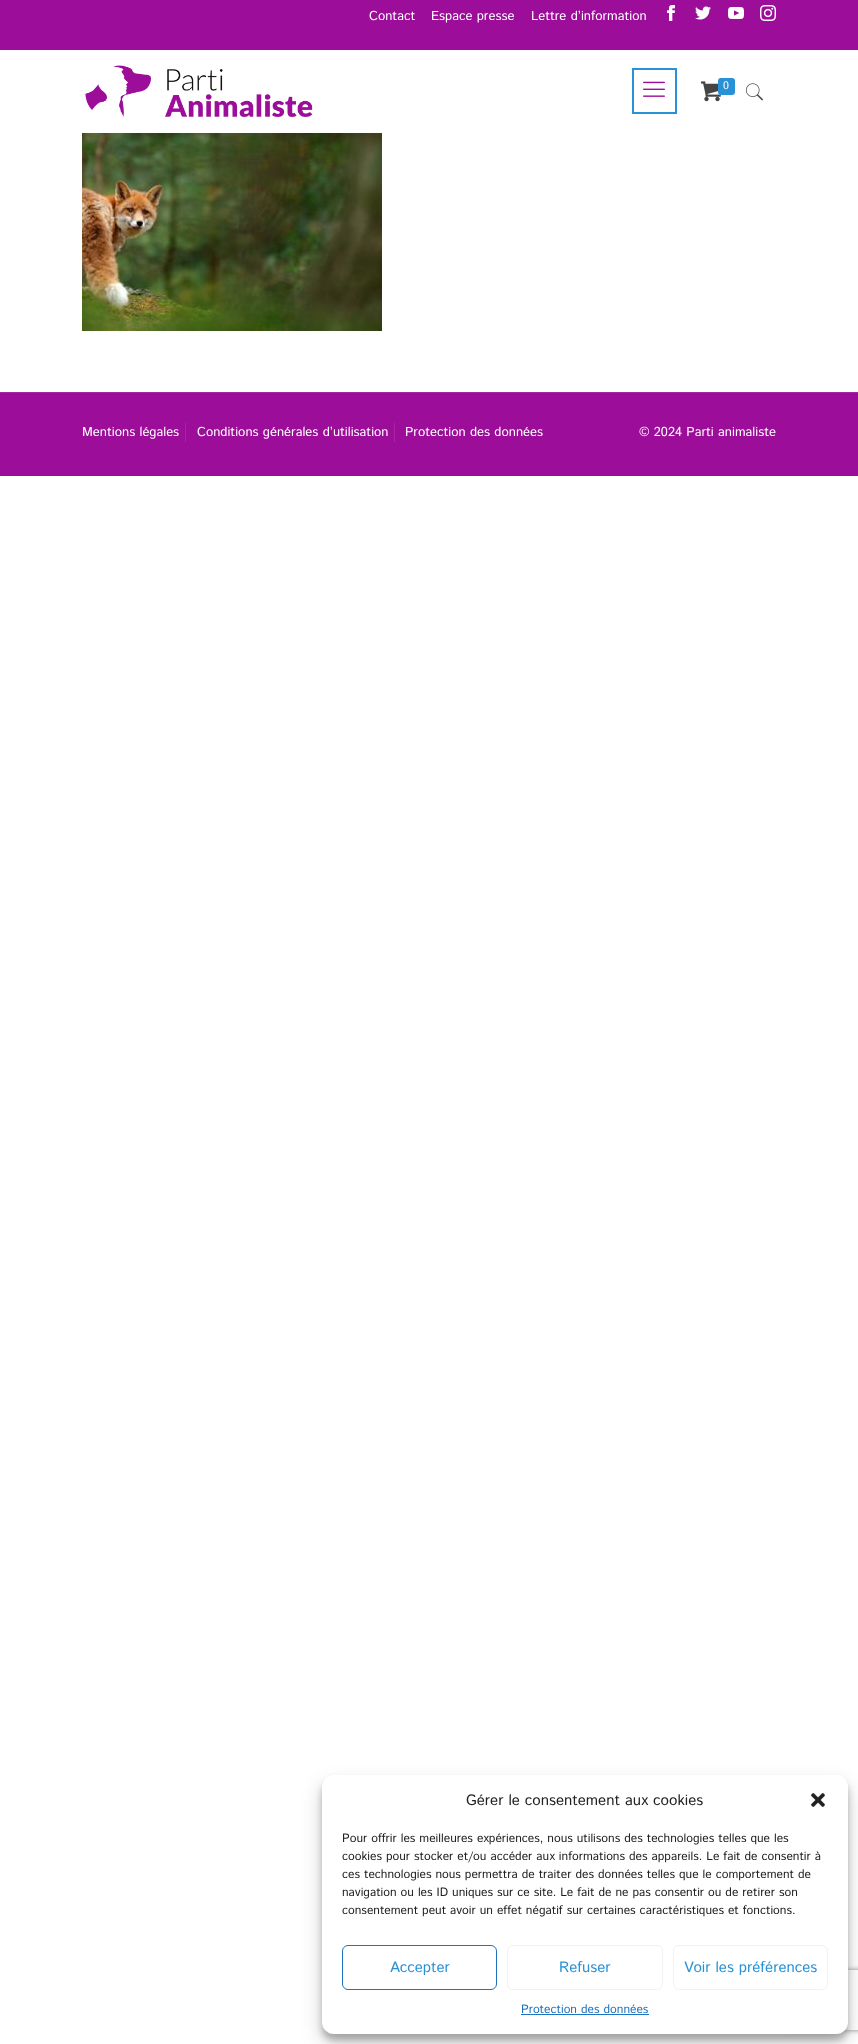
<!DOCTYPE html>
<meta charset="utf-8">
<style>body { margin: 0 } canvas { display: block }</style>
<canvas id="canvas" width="858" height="2044"></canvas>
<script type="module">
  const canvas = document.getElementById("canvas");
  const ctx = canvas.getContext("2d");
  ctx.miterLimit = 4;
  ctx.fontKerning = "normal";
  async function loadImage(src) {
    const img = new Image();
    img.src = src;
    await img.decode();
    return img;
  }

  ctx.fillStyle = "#ffffff";
  ctx.fillRect(0, 0, 858, 2044);
  ctx.fillStyle = "#9c0d99";
  ctx.fillRect(0, 0, 858, 50);
  ctx.font = "13px Istok Web";
  ctx.fillStyle = "#ffffff";
  ctx.fillText("Contact", 369, 20);
  ctx.fillText("Espace presse", 431, 20);
  ctx.fillText("Lettre d’information", 531, 20);
  ctx.drawImage(await loadImage("img1.png"), 667, 5, 8, 16);
  ctx.drawImage(await loadImage("img2.png"), 695, 6, 16, 14);
  ctx.drawImage(await loadImage("img3.png"), 728, 7, 16, 12);
  ctx.drawImage(await loadImage("img4.png"), 760, 5, 16, 16);
  ctx.drawImage(await loadImage("img5.png"), 85, 65, 228, 52);
  ctx.strokeStyle = "#2991d6";
  ctx.lineWidth = 2;
  ctx.strokeRect(633, 69, 43, 44);
  ctx.drawImage(await loadImage("img6.png"), 643, 81, 22, 16);
  ctx.drawImage(await loadImage("img7.png"), 701, 81, 20, 21);
  ctx.fillStyle = "#2991d6";
  ctx.beginPath();
  ctx.roundRect(718, 78, 17, 17, 3);
  ctx.fill();
  ctx.font = "11px Istok Web";
  ctx.fillStyle = "#ffffff";
  ctx.fillText("0", 723, 89);
  ctx.drawImage(await loadImage("img8.png"), 745, 83, 19, 18);
  ctx.drawImage(await loadImage("img9.png"), 82, 133, 300, 198);
  ctx.fillStyle = "#9c0d99";
  ctx.fillRect(0, 393, 858, 83);
  ctx.fillStyle = "#a625a3";
  ctx.fillRect(0, 392, 858, 1);
  ctx.fillRect(185, 423, 1, 19);
  ctx.font = "13px Istok Web";
  ctx.fillStyle = "#ffffff";
  ctx.fillText("Mentions légales", 82, 436);
  ctx.fillStyle = "#a625a3";
  ctx.fillRect(394, 423, 1, 19);
  ctx.fillStyle = "#ffffff";
  ctx.fillText("Conditions générales d’utilisation", 197, 436);
  ctx.fillText("Protection des données", 405, 436);
  ctx.fillText("© 2024 Parti animaliste", 639, 436);
  ctx.fillStyle = "rgba(0, 0, 0, 0.23)";
  ctx.filter = "blur(3px)";
  ctx.beginPath();
  ctx.roundRect(322, 1781, 526, 259, 12);
  ctx.fill();
  ctx.filter = "none";
  ctx.fillStyle = "rgba(0, 0, 0, 0.19)";
  ctx.filter = "blur(10px)";
  ctx.beginPath();
  ctx.roundRect(322, 1785, 526, 259, 12);
  ctx.fill();
  ctx.filter = "none";
  ctx.save();
  ctx.beginPath();
  ctx.moveTo(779, 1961);
  ctx.lineTo(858, 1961);
  ctx.lineTo(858, 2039);
  ctx.lineTo(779, 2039);
  ctx.closePath();
  ctx.moveTo(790, 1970);
  ctx.lineTo(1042, 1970);
  ctx.bezierCurveTo(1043, 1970, 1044, 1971, 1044, 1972);
  ctx.lineTo(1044, 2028);
  ctx.bezierCurveTo(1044, 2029, 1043, 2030, 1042, 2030);
  ctx.lineTo(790, 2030);
  ctx.bezierCurveTo(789, 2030, 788, 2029, 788, 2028);
  ctx.lineTo(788, 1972);
  ctx.bezierCurveTo(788, 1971, 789, 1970, 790, 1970);
  ctx.closePath();
  ctx.clip("evenodd");
  ctx.fillStyle = "#808080";
  ctx.filter = "blur(2.5px)";
  ctx.beginPath();
  ctx.roundRect(788, 1970, 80, 60, 2);
  ctx.fill();
  ctx.filter = "none";
  ctx.restore();
  ctx.fillStyle = "#ffffff";
  ctx.beginPath();
  ctx.roundRect(322, 1775, 526, 259, 12);
  ctx.fill();
  ctx.font = "15px Istok Web";
  ctx.fillStyle = "#222222";
  ctx.fillText("Gérer le consentement aux cookies", 466, 1805);
  ctx.drawImage(await loadImage("img10.png"), 811, 1793, 14, 14);
  ctx.font = "12px Istok Web";
  ctx.fillText("Pour offrir les meilleures expériences, nous utilisons des technologies telles que les", 342, 1842);
  ctx.fillText("cookies pour stocker et/ou accéder aux informations des appareils. Le fait de consentir à", 342, 1860);
  ctx.fillText("ces technologies nous permettra de traiter des données telles que le comportement de", 342, 1878);
  ctx.fillText("navigation ou les ID uniques sur ce site. Le fait de ne pas consentir ou de retirer son", 342, 1896);
  ctx.fillText("consentement peut avoir un effet négatif sur certaines caractéristiques et fonctions.", 342, 1914);
  ctx.beginPath();
  ctx.roundRect(342.5, 1945.5, 154, 44, 5.5);
  ctx.strokeStyle = "#1e73be";
  ctx.lineWidth = 1;
  ctx.stroke();
  ctx.font = "15px Istok Web";
  ctx.fillStyle = "#2991d6";
  ctx.fillText("Accepter", 390, 1972);
  ctx.beginPath();
  ctx.roundRect(507.5, 1945.5, 155, 44, 5.5);
  ctx.strokeStyle = "#f2f2f2";
  ctx.stroke();
  ctx.fillText("Refuser", 559, 1972);
  ctx.beginPath();
  ctx.roundRect(673.5, 1945.5, 154, 44, 5.5);
  ctx.stroke();
  ctx.fillText("Voir les préférences", 684, 1972);
  ctx.font = "12px Istok Web";
  ctx.fillStyle = "#1e73be";
  ctx.fillText("Protection des données", 521, 2013);
  ctx.fillRect(521, 2014, 128, 1);
</script>
